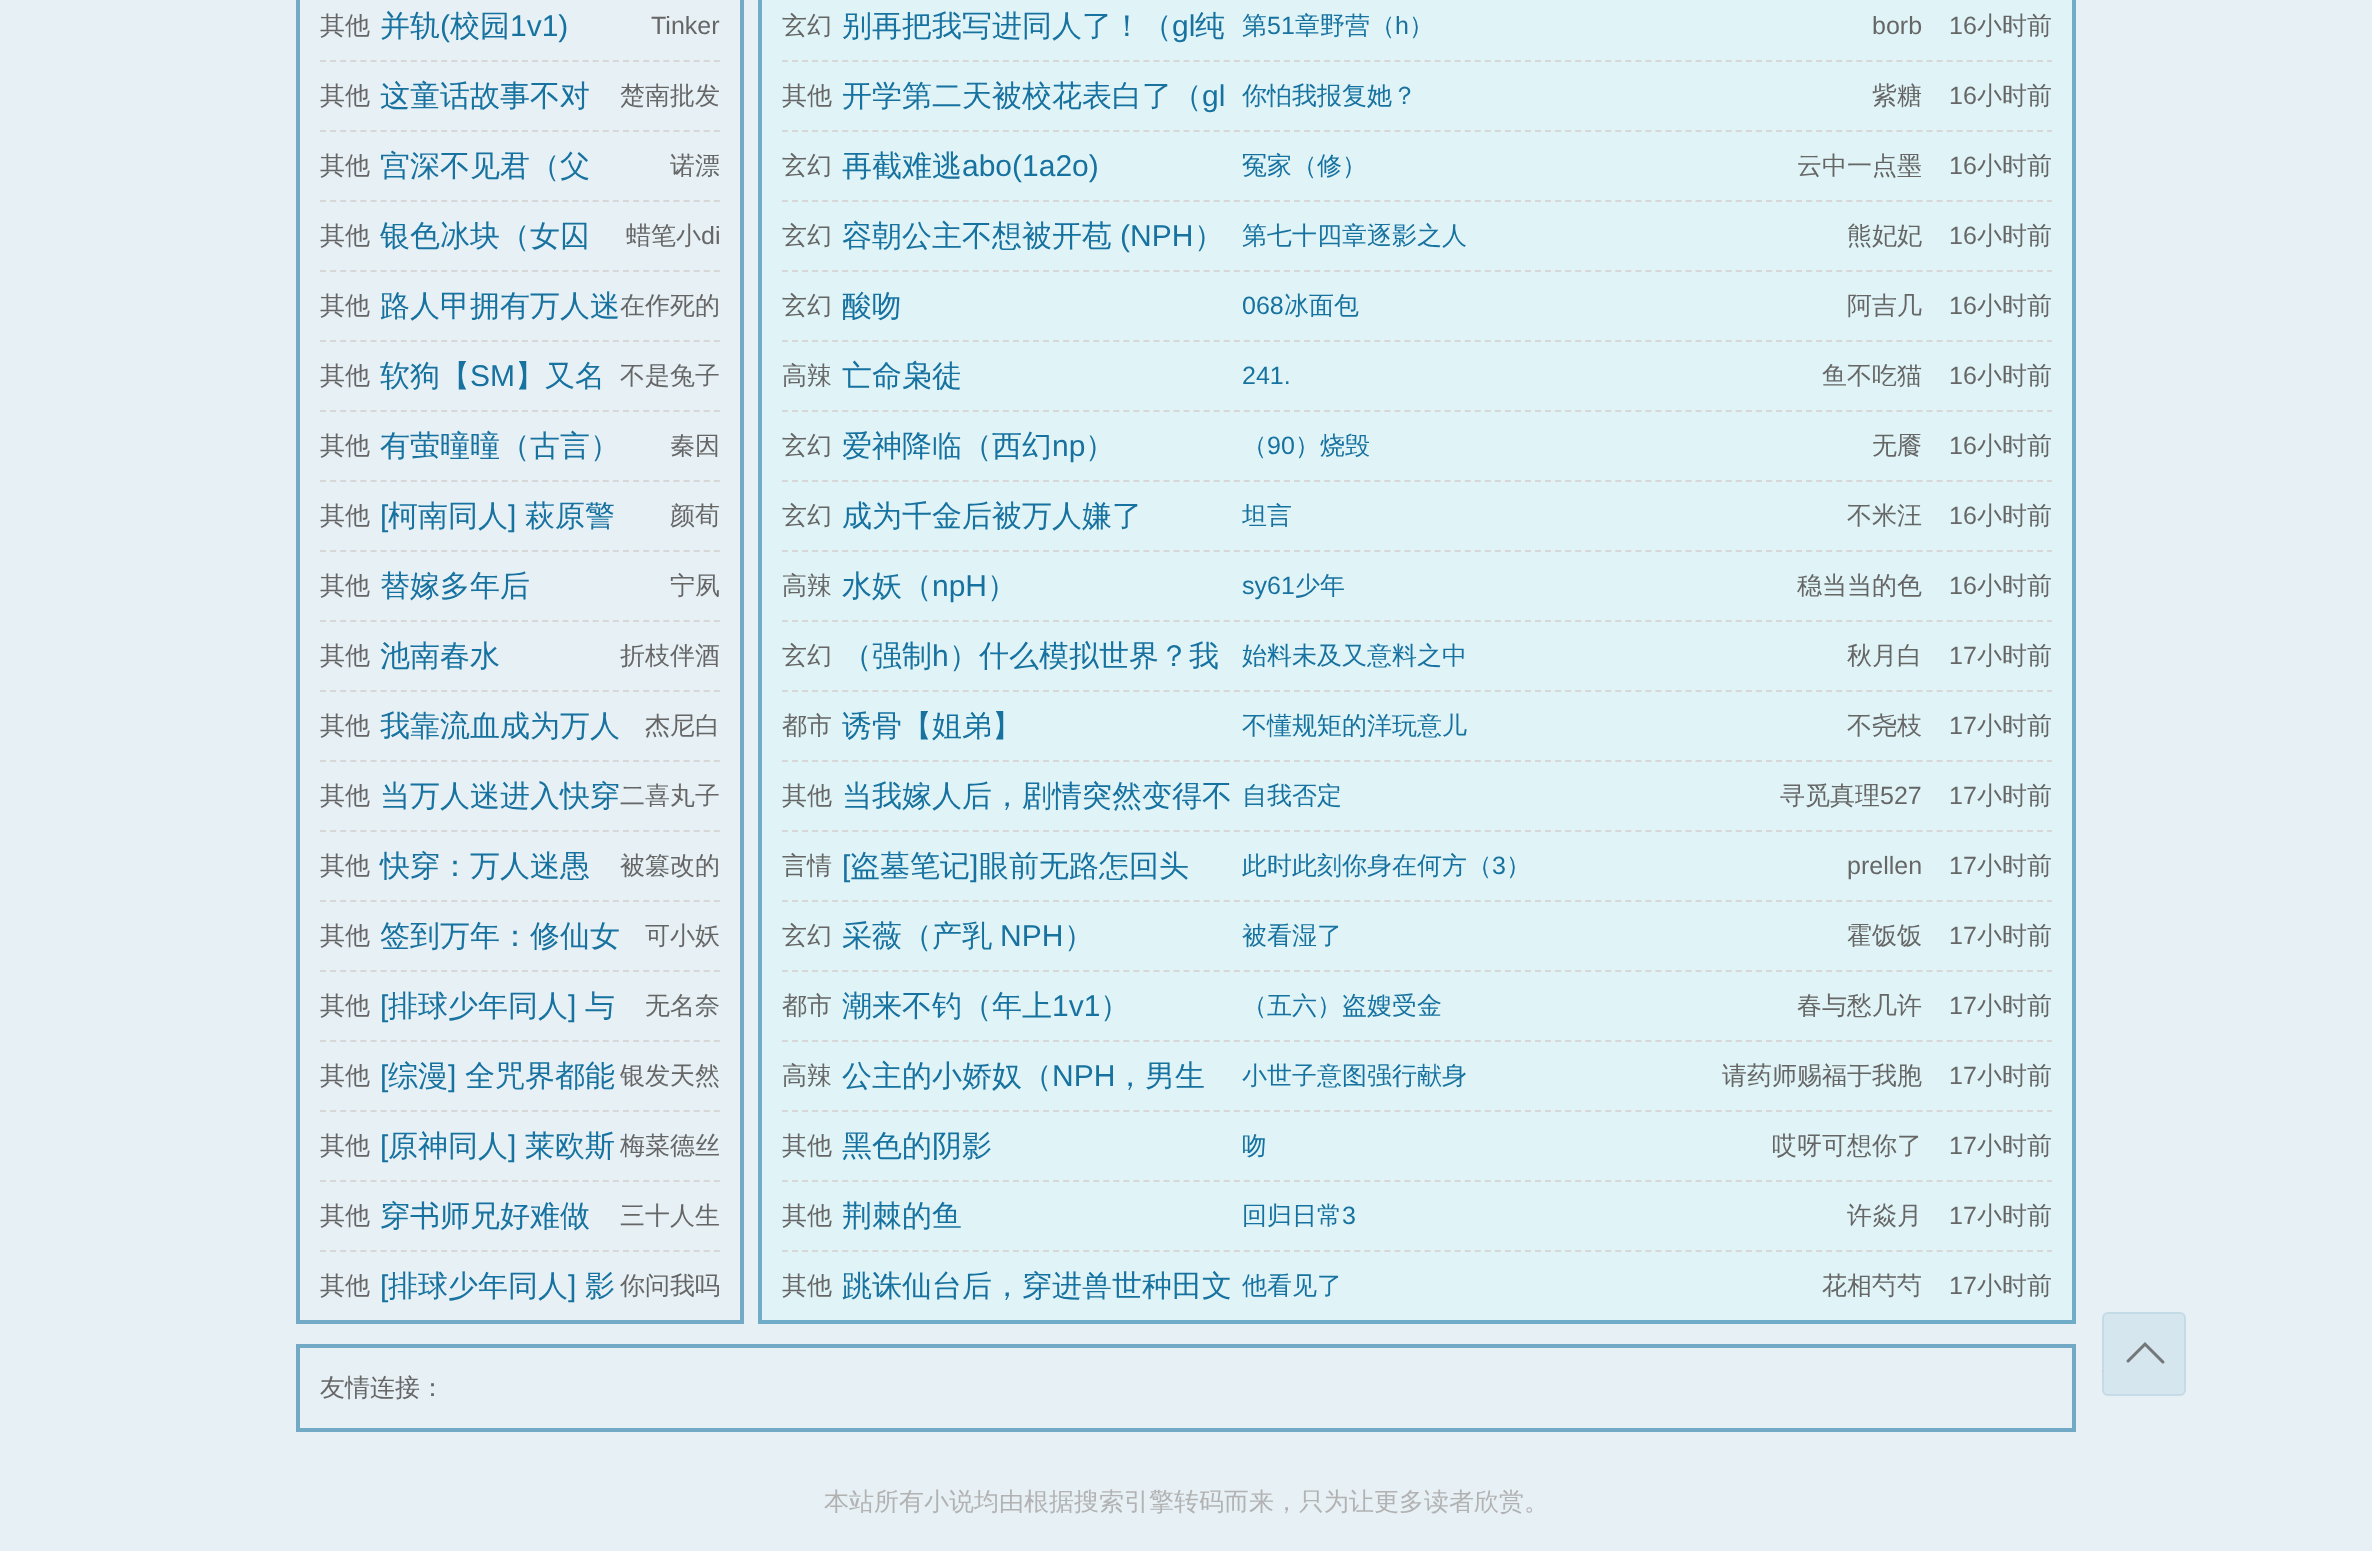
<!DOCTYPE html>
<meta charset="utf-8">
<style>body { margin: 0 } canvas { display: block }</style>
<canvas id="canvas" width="2372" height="1551"></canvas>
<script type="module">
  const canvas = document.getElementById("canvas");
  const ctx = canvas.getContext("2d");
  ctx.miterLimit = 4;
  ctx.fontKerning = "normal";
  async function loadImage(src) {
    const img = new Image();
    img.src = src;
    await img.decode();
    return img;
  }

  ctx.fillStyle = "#e6f0f5";
  ctx.fillRect(0, 0, 2372, 1551);
  ctx.strokeStyle = "#73aac6";
  ctx.lineWidth = 4;
  ctx.strokeRect(298, -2, 444, 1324);
  ctx.font = "500 25px WenQuanYi Zen Hei";
  ctx.fillStyle = "#666666";
  ctx.fillText("其他", 320, 34);
  ctx.font = "500 30px WenQuanYi Zen Hei";
  ctx.fillStyle = "#1772a0";
  ctx.fillText("并轨", 380, 36);
  ctx.font = "30px Liberation Sans";
  ctx.fillText("(", 440, 36);
  ctx.font = "500 30px WenQuanYi Zen Hei";
  ctx.fillText("校园", 450, 36);
  ctx.font = "30px Liberation Sans";
  ctx.fillText("1v1)", 510, 36);
  ctx.font = "25px Liberation Sans";
  ctx.fillStyle = "#666666";
  ctx.fillText("Tinker", 651, 34);
  ctx.beginPath();
  ctx.moveTo(320, 61);
  ctx.lineTo(720, 61);
  ctx.strokeStyle = "#d7d7d7";
  ctx.lineWidth = 2;
  ctx.setLineDash([6, 4.1]);
  ctx.stroke();
  ctx.font = "500 25px WenQuanYi Zen Hei";
  ctx.fillText("其他", 320, 104);
  ctx.font = "500 30px WenQuanYi Zen Hei";
  ctx.fillStyle = "#1772a0";
  ctx.fillText("这童话故事不对", 380, 106);
  ctx.font = "500 25px WenQuanYi Zen Hei";
  ctx.fillStyle = "#666666";
  ctx.fillText("楚南批发", 620, 104);
  ctx.beginPath();
  ctx.moveTo(320, 131);
  ctx.lineTo(720, 131);
  ctx.stroke();
  ctx.fillText("其他", 320, 174);
  ctx.font = "500 30px WenQuanYi Zen Hei";
  ctx.fillStyle = "#1772a0";
  ctx.fillText("宫深不见君（父", 380, 176);
  ctx.font = "500 25px WenQuanYi Zen Hei";
  ctx.fillStyle = "#666666";
  ctx.fillText("诺漂", 670, 174);
  ctx.beginPath();
  ctx.moveTo(320, 201);
  ctx.lineTo(720, 201);
  ctx.stroke();
  ctx.fillText("其他", 320, 244);
  ctx.font = "500 30px WenQuanYi Zen Hei";
  ctx.fillStyle = "#1772a0";
  ctx.fillText("银色冰块（女囚", 380, 246);
  ctx.font = "500 25px WenQuanYi Zen Hei";
  ctx.fillStyle = "#666666";
  ctx.fillText("蜡笔小", 626, 244);
  ctx.font = "25px Liberation Sans";
  ctx.fillText("di", 701, 244);
  ctx.beginPath();
  ctx.moveTo(320, 271);
  ctx.lineTo(720, 271);
  ctx.stroke();
  ctx.font = "500 25px WenQuanYi Zen Hei";
  ctx.fillText("其他", 320, 314);
  ctx.font = "500 30px WenQuanYi Zen Hei";
  ctx.fillStyle = "#1772a0";
  ctx.fillText("路人甲拥有万人迷", 380, 316);
  ctx.font = "500 25px WenQuanYi Zen Hei";
  ctx.fillStyle = "#666666";
  ctx.fillText("在作死的", 620, 314);
  ctx.beginPath();
  ctx.moveTo(320, 341);
  ctx.lineTo(720, 341);
  ctx.stroke();
  ctx.fillText("其他", 320, 384);
  ctx.font = "500 30px WenQuanYi Zen Hei";
  ctx.fillStyle = "#1772a0";
  ctx.fillText("软狗【", 380, 386);
  ctx.font = "30px Liberation Sans";
  ctx.fillText("SM", 470, 386);
  ctx.font = "500 30px WenQuanYi Zen Hei";
  ctx.fillText("】又名", 515, 386);
  ctx.font = "500 25px WenQuanYi Zen Hei";
  ctx.fillStyle = "#666666";
  ctx.fillText("不是兔子", 620, 384);
  ctx.beginPath();
  ctx.moveTo(320, 411);
  ctx.lineTo(720, 411);
  ctx.stroke();
  ctx.fillText("其他", 320, 454);
  ctx.font = "500 30px WenQuanYi Zen Hei";
  ctx.fillStyle = "#1772a0";
  ctx.fillText("有萤曈曈（古言）", 380, 456);
  ctx.font = "500 25px WenQuanYi Zen Hei";
  ctx.fillStyle = "#666666";
  ctx.fillText("秦因", 670, 454);
  ctx.beginPath();
  ctx.moveTo(320, 481);
  ctx.lineTo(720, 481);
  ctx.stroke();
  ctx.fillText("其他", 320, 524);
  ctx.font = "30px Liberation Sans";
  ctx.fillStyle = "#1772a0";
  ctx.fillText("[", 380, 526);
  ctx.font = "500 30px WenQuanYi Zen Hei";
  ctx.fillText("柯南同人", 388, 526);
  ctx.font = "30px Liberation Sans";
  ctx.fillText("]", 508, 526);
  ctx.font = "500 30px WenQuanYi Zen Hei";
  ctx.fillText("萩原警", 525, 526);
  ctx.font = "500 25px WenQuanYi Zen Hei";
  ctx.fillStyle = "#666666";
  ctx.fillText("颜荀", 670, 524);
  ctx.beginPath();
  ctx.moveTo(320, 551);
  ctx.lineTo(720, 551);
  ctx.stroke();
  ctx.fillText("其他", 320, 594);
  ctx.font = "500 30px WenQuanYi Zen Hei";
  ctx.fillStyle = "#1772a0";
  ctx.fillText("替嫁多年后", 380, 596);
  ctx.font = "500 25px WenQuanYi Zen Hei";
  ctx.fillStyle = "#666666";
  ctx.fillText("宁夙", 670, 594);
  ctx.beginPath();
  ctx.moveTo(320, 621);
  ctx.lineTo(720, 621);
  ctx.stroke();
  ctx.fillText("其他", 320, 664);
  ctx.font = "500 30px WenQuanYi Zen Hei";
  ctx.fillStyle = "#1772a0";
  ctx.fillText("池南春水", 380, 666);
  ctx.font = "500 25px WenQuanYi Zen Hei";
  ctx.fillStyle = "#666666";
  ctx.fillText("折枝伴酒", 620, 664);
  ctx.beginPath();
  ctx.moveTo(320, 691);
  ctx.lineTo(720, 691);
  ctx.stroke();
  ctx.fillText("其他", 320, 734);
  ctx.font = "500 30px WenQuanYi Zen Hei";
  ctx.fillStyle = "#1772a0";
  ctx.fillText("我靠流血成为万人", 380, 736);
  ctx.font = "500 25px WenQuanYi Zen Hei";
  ctx.fillStyle = "#666666";
  ctx.fillText("杰尼白", 645, 734);
  ctx.beginPath();
  ctx.moveTo(320, 761);
  ctx.lineTo(720, 761);
  ctx.stroke();
  ctx.fillText("其他", 320, 804);
  ctx.font = "500 30px WenQuanYi Zen Hei";
  ctx.fillStyle = "#1772a0";
  ctx.fillText("当万人迷进入快穿", 380, 806);
  ctx.font = "500 25px WenQuanYi Zen Hei";
  ctx.fillStyle = "#666666";
  ctx.fillText("二喜丸子", 620, 804);
  ctx.beginPath();
  ctx.moveTo(320, 831);
  ctx.lineTo(720, 831);
  ctx.stroke();
  ctx.fillText("其他", 320, 874);
  ctx.font = "500 30px WenQuanYi Zen Hei";
  ctx.fillStyle = "#1772a0";
  ctx.fillText("快穿：万人迷愚", 380, 876);
  ctx.font = "500 25px WenQuanYi Zen Hei";
  ctx.fillStyle = "#666666";
  ctx.fillText("被篡改的", 620, 874);
  ctx.beginPath();
  ctx.moveTo(320, 901);
  ctx.lineTo(720, 901);
  ctx.stroke();
  ctx.fillText("其他", 320, 944);
  ctx.font = "500 30px WenQuanYi Zen Hei";
  ctx.fillStyle = "#1772a0";
  ctx.fillText("签到万年：修仙女", 380, 946);
  ctx.font = "500 25px WenQuanYi Zen Hei";
  ctx.fillStyle = "#666666";
  ctx.fillText("可小妖", 645, 944);
  ctx.beginPath();
  ctx.moveTo(320, 971);
  ctx.lineTo(720, 971);
  ctx.stroke();
  ctx.fillText("其他", 320, 1014);
  ctx.font = "30px Liberation Sans";
  ctx.fillStyle = "#1772a0";
  ctx.fillText("[", 380, 1016);
  ctx.font = "500 30px WenQuanYi Zen Hei";
  ctx.fillText("排球少年同人", 388, 1016);
  ctx.font = "30px Liberation Sans";
  ctx.fillText("]", 568, 1016);
  ctx.font = "500 30px WenQuanYi Zen Hei";
  ctx.fillText("与", 585, 1016);
  ctx.font = "500 25px WenQuanYi Zen Hei";
  ctx.fillStyle = "#666666";
  ctx.fillText("无名奈", 645, 1014);
  ctx.beginPath();
  ctx.moveTo(320, 1041);
  ctx.lineTo(720, 1041);
  ctx.stroke();
  ctx.fillText("其他", 320, 1084);
  ctx.font = "30px Liberation Sans";
  ctx.fillStyle = "#1772a0";
  ctx.fillText("[", 380, 1086);
  ctx.font = "500 30px WenQuanYi Zen Hei";
  ctx.fillText("综漫", 388, 1086);
  ctx.font = "30px Liberation Sans";
  ctx.fillText("]", 448, 1086);
  ctx.font = "500 30px WenQuanYi Zen Hei";
  ctx.fillText("全咒界都能", 465, 1086);
  ctx.font = "500 25px WenQuanYi Zen Hei";
  ctx.fillStyle = "#666666";
  ctx.fillText("银发天然", 620, 1084);
  ctx.beginPath();
  ctx.moveTo(320, 1111);
  ctx.lineTo(720, 1111);
  ctx.stroke();
  ctx.fillText("其他", 320, 1154);
  ctx.font = "30px Liberation Sans";
  ctx.fillStyle = "#1772a0";
  ctx.fillText("[", 380, 1156);
  ctx.font = "500 30px WenQuanYi Zen Hei";
  ctx.fillText("原神同人", 388, 1156);
  ctx.font = "30px Liberation Sans";
  ctx.fillText("]", 508, 1156);
  ctx.font = "500 30px WenQuanYi Zen Hei";
  ctx.fillText("莱欧斯", 525, 1156);
  ctx.font = "500 25px WenQuanYi Zen Hei";
  ctx.fillStyle = "#666666";
  ctx.fillText("梅菜德丝", 620, 1154);
  ctx.beginPath();
  ctx.moveTo(320, 1181);
  ctx.lineTo(720, 1181);
  ctx.stroke();
  ctx.fillText("其他", 320, 1224);
  ctx.font = "500 30px WenQuanYi Zen Hei";
  ctx.fillStyle = "#1772a0";
  ctx.fillText("穿书师兄好难做", 380, 1226);
  ctx.font = "500 25px WenQuanYi Zen Hei";
  ctx.fillStyle = "#666666";
  ctx.fillText("三十人生", 620, 1224);
  ctx.beginPath();
  ctx.moveTo(320, 1251);
  ctx.lineTo(720, 1251);
  ctx.stroke();
  ctx.fillText("其他", 320, 1294);
  ctx.font = "30px Liberation Sans";
  ctx.fillStyle = "#1772a0";
  ctx.fillText("[", 380, 1296);
  ctx.font = "500 30px WenQuanYi Zen Hei";
  ctx.fillText("排球少年同人", 388, 1296);
  ctx.font = "30px Liberation Sans";
  ctx.fillText("]", 568, 1296);
  ctx.font = "500 30px WenQuanYi Zen Hei";
  ctx.fillText("影", 585, 1296);
  ctx.font = "500 25px WenQuanYi Zen Hei";
  ctx.fillStyle = "#666666";
  ctx.fillText("你问我吗", 620, 1294);
  ctx.fillStyle = "#e0f4f7";
  ctx.beginPath();
  ctx.rect(760, -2, 1314, 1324);
  ctx.fill();
  ctx.strokeStyle = "#70acc7";
  ctx.lineWidth = 4;
  ctx.setLineDash([]);
  ctx.stroke();
  ctx.fillStyle = "#666666";
  ctx.fillText("玄幻", 782, 34);
  ctx.font = "500 30px WenQuanYi Zen Hei";
  ctx.fillStyle = "#1772a0";
  ctx.fillText("别再把我写进同人了！（", 842, 36);
  ctx.font = "30px Liberation Sans";
  ctx.fillText("gl", 1172, 36);
  ctx.font = "500 30px WenQuanYi Zen Hei";
  ctx.fillText("纯", 1195, 36);
  ctx.font = "500 25px WenQuanYi Zen Hei";
  ctx.fillText("第", 1242, 34);
  ctx.font = "25px Liberation Sans";
  ctx.fillText("51", 1267, 34);
  ctx.font = "500 25px WenQuanYi Zen Hei";
  ctx.fillText("章野营（", 1295, 34);
  ctx.font = "25px Liberation Sans";
  ctx.fillText("h", 1395, 34);
  ctx.font = "500 25px WenQuanYi Zen Hei";
  ctx.fillText("）", 1409, 34);
  ctx.font = "25px Liberation Sans";
  ctx.fillStyle = "#666666";
  ctx.fillText("borb", 1872, 34);
  ctx.fillText("16", 1949, 34);
  ctx.font = "500 25px WenQuanYi Zen Hei";
  ctx.fillText("小时前", 1977, 34);
  ctx.beginPath();
  ctx.moveTo(782, 61);
  ctx.lineTo(2052, 61);
  ctx.strokeStyle = "#d7d7d7";
  ctx.lineWidth = 2;
  ctx.setLineDash([6, 4.04]);
  ctx.stroke();
  ctx.fillText("其他", 782, 104);
  ctx.font = "500 30px WenQuanYi Zen Hei";
  ctx.fillStyle = "#1772a0";
  ctx.fillText("开学第二天被校花表白了（", 842, 106);
  ctx.font = "30px Liberation Sans";
  ctx.fillText("gl", 1202, 106);
  ctx.font = "500 25px WenQuanYi Zen Hei";
  ctx.fillText("你怕我报复她？", 1242, 104);
  ctx.fillStyle = "#666666";
  ctx.fillText("紫糖", 1872, 104);
  ctx.font = "25px Liberation Sans";
  ctx.fillText("16", 1949, 104);
  ctx.font = "500 25px WenQuanYi Zen Hei";
  ctx.fillText("小时前", 1977, 104);
  ctx.beginPath();
  ctx.moveTo(782, 131);
  ctx.lineTo(2052, 131);
  ctx.stroke();
  ctx.fillText("玄幻", 782, 174);
  ctx.font = "500 30px WenQuanYi Zen Hei";
  ctx.fillStyle = "#1772a0";
  ctx.fillText("再截难逃", 842, 176);
  ctx.font = "30px Liberation Sans";
  ctx.fillText("abo(1a2o)", 962, 176);
  ctx.font = "500 25px WenQuanYi Zen Hei";
  ctx.fillText("冤家（修）", 1242, 174);
  ctx.fillStyle = "#666666";
  ctx.fillText("云中一点墨", 1797, 174);
  ctx.font = "25px Liberation Sans";
  ctx.fillText("16", 1949, 174);
  ctx.font = "500 25px WenQuanYi Zen Hei";
  ctx.fillText("小时前", 1977, 174);
  ctx.beginPath();
  ctx.moveTo(782, 201);
  ctx.lineTo(2052, 201);
  ctx.stroke();
  ctx.fillText("玄幻", 782, 244);
  ctx.font = "500 30px WenQuanYi Zen Hei";
  ctx.fillStyle = "#1772a0";
  ctx.fillText("容朝公主不想被开苞", 842, 246);
  ctx.font = "30px Liberation Sans";
  ctx.fillText("(NPH", 1120, 246);
  ctx.font = "500 30px WenQuanYi Zen Hei";
  ctx.fillText("）", 1194, 246);
  ctx.font = "500 25px WenQuanYi Zen Hei";
  ctx.fillText("第七十四章逐影之人", 1242, 244);
  ctx.fillStyle = "#666666";
  ctx.fillText("熊妃妃", 1847, 244);
  ctx.font = "25px Liberation Sans";
  ctx.fillText("16", 1949, 244);
  ctx.font = "500 25px WenQuanYi Zen Hei";
  ctx.fillText("小时前", 1977, 244);
  ctx.beginPath();
  ctx.moveTo(782, 271);
  ctx.lineTo(2052, 271);
  ctx.stroke();
  ctx.fillText("玄幻", 782, 314);
  ctx.font = "500 30px WenQuanYi Zen Hei";
  ctx.fillStyle = "#1772a0";
  ctx.fillText("酸吻", 842, 316);
  ctx.font = "25px Liberation Sans";
  ctx.fillText("068", 1242, 314);
  ctx.font = "500 25px WenQuanYi Zen Hei";
  ctx.fillText("冰面包", 1284, 314);
  ctx.fillStyle = "#666666";
  ctx.fillText("阿吉几", 1847, 314);
  ctx.font = "25px Liberation Sans";
  ctx.fillText("16", 1949, 314);
  ctx.font = "500 25px WenQuanYi Zen Hei";
  ctx.fillText("小时前", 1977, 314);
  ctx.beginPath();
  ctx.moveTo(782, 341);
  ctx.lineTo(2052, 341);
  ctx.stroke();
  ctx.fillText("高辣", 782, 384);
  ctx.font = "500 30px WenQuanYi Zen Hei";
  ctx.fillStyle = "#1772a0";
  ctx.fillText("亡命枭徒", 842, 386);
  ctx.font = "25px Liberation Sans";
  ctx.fillText("241.", 1242, 384);
  ctx.font = "500 25px WenQuanYi Zen Hei";
  ctx.fillStyle = "#666666";
  ctx.fillText("鱼不吃猫", 1822, 384);
  ctx.font = "25px Liberation Sans";
  ctx.fillText("16", 1949, 384);
  ctx.font = "500 25px WenQuanYi Zen Hei";
  ctx.fillText("小时前", 1977, 384);
  ctx.beginPath();
  ctx.moveTo(782, 411);
  ctx.lineTo(2052, 411);
  ctx.stroke();
  ctx.fillText("玄幻", 782, 454);
  ctx.font = "500 30px WenQuanYi Zen Hei";
  ctx.fillStyle = "#1772a0";
  ctx.fillText("爱神降临（西幻", 842, 456);
  ctx.font = "30px Liberation Sans";
  ctx.fillText("np", 1052, 456);
  ctx.font = "500 30px WenQuanYi Zen Hei";
  ctx.fillText("）", 1085, 456);
  ctx.font = "500 25px WenQuanYi Zen Hei";
  ctx.fillText("（", 1242, 454);
  ctx.font = "25px Liberation Sans";
  ctx.fillText("90", 1267, 454);
  ctx.font = "500 25px WenQuanYi Zen Hei";
  ctx.fillText("）烧毁", 1295, 454);
  ctx.fillStyle = "#666666";
  ctx.fillText("无餍", 1872, 454);
  ctx.font = "25px Liberation Sans";
  ctx.fillText("16", 1949, 454);
  ctx.font = "500 25px WenQuanYi Zen Hei";
  ctx.fillText("小时前", 1977, 454);
  ctx.beginPath();
  ctx.moveTo(782, 481);
  ctx.lineTo(2052, 481);
  ctx.stroke();
  ctx.fillText("玄幻", 782, 524);
  ctx.font = "500 30px WenQuanYi Zen Hei";
  ctx.fillStyle = "#1772a0";
  ctx.fillText("成为千金后被万人嫌了", 842, 526);
  ctx.font = "500 25px WenQuanYi Zen Hei";
  ctx.fillText("坦言", 1242, 524);
  ctx.fillStyle = "#666666";
  ctx.fillText("不米汪", 1847, 524);
  ctx.font = "25px Liberation Sans";
  ctx.fillText("16", 1949, 524);
  ctx.font = "500 25px WenQuanYi Zen Hei";
  ctx.fillText("小时前", 1977, 524);
  ctx.beginPath();
  ctx.moveTo(782, 551);
  ctx.lineTo(2052, 551);
  ctx.stroke();
  ctx.fillText("高辣", 782, 594);
  ctx.font = "500 30px WenQuanYi Zen Hei";
  ctx.fillStyle = "#1772a0";
  ctx.fillText("水妖（", 842, 596);
  ctx.font = "30px Liberation Sans";
  ctx.fillText("npH", 932, 596);
  ctx.font = "500 30px WenQuanYi Zen Hei";
  ctx.fillText("）", 987, 596);
  ctx.font = "25px Liberation Sans";
  ctx.fillText("sy61", 1242, 594);
  ctx.font = "500 25px WenQuanYi Zen Hei";
  ctx.fillText("少年", 1295, 594);
  ctx.fillStyle = "#666666";
  ctx.fillText("稳当当的色", 1797, 594);
  ctx.font = "25px Liberation Sans";
  ctx.fillText("16", 1949, 594);
  ctx.font = "500 25px WenQuanYi Zen Hei";
  ctx.fillText("小时前", 1977, 594);
  ctx.beginPath();
  ctx.moveTo(782, 621);
  ctx.lineTo(2052, 621);
  ctx.stroke();
  ctx.fillText("玄幻", 782, 664);
  ctx.font = "500 30px WenQuanYi Zen Hei";
  ctx.fillStyle = "#1772a0";
  ctx.fillText("（强制", 842, 666);
  ctx.font = "30px Liberation Sans";
  ctx.fillText("h", 932, 666);
  ctx.font = "500 30px WenQuanYi Zen Hei";
  ctx.fillText("）什么模拟世界？我", 949, 666);
  ctx.font = "500 25px WenQuanYi Zen Hei";
  ctx.fillText("始料未及又意料之中", 1242, 664);
  ctx.fillStyle = "#666666";
  ctx.fillText("秋月白", 1847, 664);
  ctx.font = "25px Liberation Sans";
  ctx.fillText("17", 1949, 664);
  ctx.font = "500 25px WenQuanYi Zen Hei";
  ctx.fillText("小时前", 1977, 664);
  ctx.beginPath();
  ctx.moveTo(782, 691);
  ctx.lineTo(2052, 691);
  ctx.stroke();
  ctx.fillText("都市", 782, 734);
  ctx.font = "500 30px WenQuanYi Zen Hei";
  ctx.fillStyle = "#1772a0";
  ctx.fillText("诱骨【姐弟】", 842, 736);
  ctx.font = "500 25px WenQuanYi Zen Hei";
  ctx.fillText("不懂规矩的洋玩意儿", 1242, 734);
  ctx.fillStyle = "#666666";
  ctx.fillText("不尧枝", 1847, 734);
  ctx.font = "25px Liberation Sans";
  ctx.fillText("17", 1949, 734);
  ctx.font = "500 25px WenQuanYi Zen Hei";
  ctx.fillText("小时前", 1977, 734);
  ctx.beginPath();
  ctx.moveTo(782, 761);
  ctx.lineTo(2052, 761);
  ctx.stroke();
  ctx.fillText("其他", 782, 804);
  ctx.font = "500 30px WenQuanYi Zen Hei";
  ctx.fillStyle = "#1772a0";
  ctx.fillText("当我嫁人后，剧情突然变得不", 842, 806);
  ctx.font = "500 25px WenQuanYi Zen Hei";
  ctx.fillText("自我否定", 1242, 804);
  ctx.fillStyle = "#666666";
  ctx.fillText("寻觅真理", 1780, 804);
  ctx.font = "25px Liberation Sans";
  ctx.fillText("527", 1880, 804);
  ctx.fillText("17", 1949, 804);
  ctx.font = "500 25px WenQuanYi Zen Hei";
  ctx.fillText("小时前", 1977, 804);
  ctx.beginPath();
  ctx.moveTo(782, 831);
  ctx.lineTo(2052, 831);
  ctx.stroke();
  ctx.fillText("言情", 782, 874);
  ctx.font = "30px Liberation Sans";
  ctx.fillStyle = "#1772a0";
  ctx.fillText("[", 842, 876);
  ctx.font = "500 30px WenQuanYi Zen Hei";
  ctx.fillText("盗墓笔记", 850, 876);
  ctx.font = "30px Liberation Sans";
  ctx.fillText("]", 970, 876);
  ctx.font = "500 30px WenQuanYi Zen Hei";
  ctx.fillText("眼前无路怎回头", 979, 876);
  ctx.font = "500 25px WenQuanYi Zen Hei";
  ctx.fillText("此时此刻你身在何方（", 1242, 874);
  ctx.font = "25px Liberation Sans";
  ctx.fillText("3", 1492, 874);
  ctx.font = "500 25px WenQuanYi Zen Hei";
  ctx.fillText("）", 1506, 874);
  ctx.font = "25px Liberation Sans";
  ctx.fillStyle = "#666666";
  ctx.fillText("prellen", 1847, 874);
  ctx.fillText("17", 1949, 874);
  ctx.font = "500 25px WenQuanYi Zen Hei";
  ctx.fillText("小时前", 1977, 874);
  ctx.beginPath();
  ctx.moveTo(782, 901);
  ctx.lineTo(2052, 901);
  ctx.stroke();
  ctx.fillText("玄幻", 782, 944);
  ctx.font = "500 30px WenQuanYi Zen Hei";
  ctx.fillStyle = "#1772a0";
  ctx.fillText("采薇（产乳", 842, 946);
  ctx.font = "30px Liberation Sans";
  ctx.fillText("NPH", 1000, 946);
  ctx.font = "500 30px WenQuanYi Zen Hei";
  ctx.fillText("）", 1064, 946);
  ctx.font = "500 25px WenQuanYi Zen Hei";
  ctx.fillText("被看湿了", 1242, 944);
  ctx.fillStyle = "#666666";
  ctx.fillText("霍饭饭", 1847, 944);
  ctx.font = "25px Liberation Sans";
  ctx.fillText("17", 1949, 944);
  ctx.font = "500 25px WenQuanYi Zen Hei";
  ctx.fillText("小时前", 1977, 944);
  ctx.beginPath();
  ctx.moveTo(782, 971);
  ctx.lineTo(2052, 971);
  ctx.stroke();
  ctx.fillText("都市", 782, 1014);
  ctx.font = "500 30px WenQuanYi Zen Hei";
  ctx.fillStyle = "#1772a0";
  ctx.fillText("潮来不钓（年上", 842, 1016);
  ctx.font = "30px Liberation Sans";
  ctx.fillText("1v1", 1052, 1016);
  ctx.font = "500 30px WenQuanYi Zen Hei";
  ctx.fillText("）", 1100, 1016);
  ctx.font = "500 25px WenQuanYi Zen Hei";
  ctx.fillText("（五六）盗嫂受金", 1242, 1014);
  ctx.fillStyle = "#666666";
  ctx.fillText("春与愁几许", 1797, 1014);
  ctx.font = "25px Liberation Sans";
  ctx.fillText("17", 1949, 1014);
  ctx.font = "500 25px WenQuanYi Zen Hei";
  ctx.fillText("小时前", 1977, 1014);
  ctx.beginPath();
  ctx.moveTo(782, 1041);
  ctx.lineTo(2052, 1041);
  ctx.stroke();
  ctx.fillText("高辣", 782, 1084);
  ctx.font = "500 30px WenQuanYi Zen Hei";
  ctx.fillStyle = "#1772a0";
  ctx.fillText("公主的小娇奴（", 842, 1086);
  ctx.font = "30px Liberation Sans";
  ctx.fillText("NPH", 1052, 1086);
  ctx.font = "500 30px WenQuanYi Zen Hei";
  ctx.fillText("，男生", 1115, 1086);
  ctx.font = "500 25px WenQuanYi Zen Hei";
  ctx.fillText("小世子意图强行献身", 1242, 1084);
  ctx.fillStyle = "#666666";
  ctx.fillText("请药师赐福于我胞", 1722, 1084);
  ctx.font = "25px Liberation Sans";
  ctx.fillText("17", 1949, 1084);
  ctx.font = "500 25px WenQuanYi Zen Hei";
  ctx.fillText("小时前", 1977, 1084);
  ctx.beginPath();
  ctx.moveTo(782, 1111);
  ctx.lineTo(2052, 1111);
  ctx.stroke();
  ctx.fillText("其他", 782, 1154);
  ctx.font = "500 30px WenQuanYi Zen Hei";
  ctx.fillStyle = "#1772a0";
  ctx.fillText("黑色的阴影", 842, 1156);
  ctx.font = "500 25px WenQuanYi Zen Hei";
  ctx.fillText("吻", 1242, 1154);
  ctx.fillStyle = "#666666";
  ctx.fillText("哎呀可想你了", 1772, 1154);
  ctx.font = "25px Liberation Sans";
  ctx.fillText("17", 1949, 1154);
  ctx.font = "500 25px WenQuanYi Zen Hei";
  ctx.fillText("小时前", 1977, 1154);
  ctx.beginPath();
  ctx.moveTo(782, 1181);
  ctx.lineTo(2052, 1181);
  ctx.stroke();
  ctx.fillText("其他", 782, 1224);
  ctx.font = "500 30px WenQuanYi Zen Hei";
  ctx.fillStyle = "#1772a0";
  ctx.fillText("荆棘的鱼", 842, 1226);
  ctx.font = "500 25px WenQuanYi Zen Hei";
  ctx.fillText("回归日常", 1242, 1224);
  ctx.font = "25px Liberation Sans";
  ctx.fillText("3", 1342, 1224);
  ctx.font = "500 25px WenQuanYi Zen Hei";
  ctx.fillStyle = "#666666";
  ctx.fillText("许焱月", 1847, 1224);
  ctx.font = "25px Liberation Sans";
  ctx.fillText("17", 1949, 1224);
  ctx.font = "500 25px WenQuanYi Zen Hei";
  ctx.fillText("小时前", 1977, 1224);
  ctx.beginPath();
  ctx.moveTo(782, 1251);
  ctx.lineTo(2052, 1251);
  ctx.stroke();
  ctx.fillText("其他", 782, 1294);
  ctx.font = "500 30px WenQuanYi Zen Hei";
  ctx.fillStyle = "#1772a0";
  ctx.fillText("跳诛仙台后，穿进兽世种田文", 842, 1296);
  ctx.font = "500 25px WenQuanYi Zen Hei";
  ctx.fillText("他看见了", 1242, 1294);
  ctx.fillStyle = "#666666";
  ctx.fillText("花相芍芍", 1822, 1294);
  ctx.font = "25px Liberation Sans";
  ctx.fillText("17", 1949, 1294);
  ctx.font = "500 25px WenQuanYi Zen Hei";
  ctx.fillText("小时前", 1977, 1294);
  ctx.strokeStyle = "#72aac5";
  ctx.lineWidth = 4;
  ctx.setLineDash([]);
  ctx.strokeRect(298, 1346, 1776, 84);
  ctx.fillText("友情连接：", 320, 1396);
  ctx.fillStyle = "#d5e6ee";
  ctx.beginPath();
  ctx.roundRect(2102, 1312, 84, 84, 6);
  ctx.fill();
  ctx.drawImage(await loadImage("img1.png"), 2102, 1342, 63, 30);
  ctx.beginPath();
  ctx.roundRect(2103, 1313, 82, 82, 5);
  ctx.strokeStyle = "rgba(58, 135, 174, 0.1)";
  ctx.lineWidth = 2;
  ctx.stroke();
  ctx.fillStyle = "#b2b2b2";
  ctx.fillText("本站所有小说均由根据搜索引擎转码而来，只为让更多读者欣赏。", 824, 1510);
</script>
